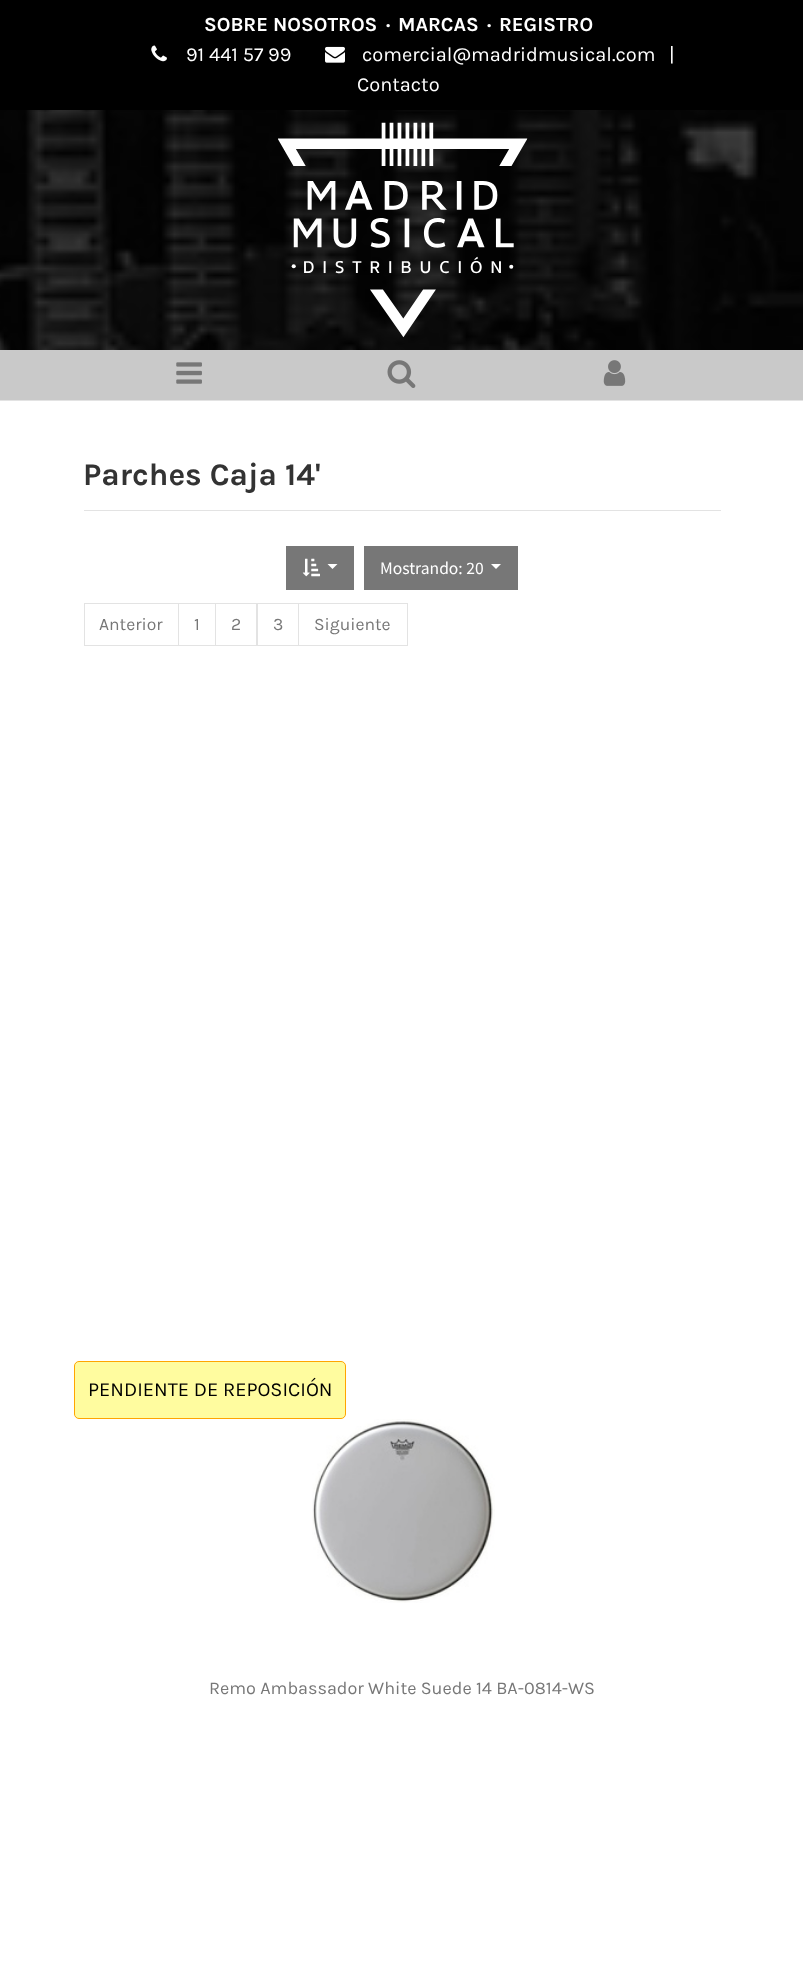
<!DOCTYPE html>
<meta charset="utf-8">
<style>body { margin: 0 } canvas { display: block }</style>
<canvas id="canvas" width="803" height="1983"></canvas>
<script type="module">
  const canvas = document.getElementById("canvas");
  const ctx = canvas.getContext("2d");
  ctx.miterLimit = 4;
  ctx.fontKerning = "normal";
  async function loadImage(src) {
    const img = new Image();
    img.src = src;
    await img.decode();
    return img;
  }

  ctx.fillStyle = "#ffffff";
  ctx.fillRect(0, 0, 803, 1983);
  ctx.fillStyle = "#000000";
  ctx.fillRect(0, 0, 803, 110);
  ctx.font = "bold 20px Karla";
  ctx.fillStyle = "#ffffff";
  ctx.fillText("SOBRE NOSOTROS", 204, 31);
  ctx.fillText("·", 386, 31);
  ctx.fillText("MARCAS", 398, 31);
  ctx.fillText("·", 487, 31);
  ctx.fillText("REGISTRO", 499, 31);
  ctx.drawImage(await loadImage("img1.png"), 151, 45, 16, 17);
  ctx.font = "20px Karla";
  ctx.fillText("91 441 57 99", 186, 61);
  ctx.drawImage(await loadImage("img2.png"), 325, 46, 20, 17);
  ctx.fillText("comercial@madridmusical.com", 362, 61);
  ctx.fillText("|", 669, 61);
  ctx.fillText("Contacto", 357, 91);
  ctx.drawImage(await loadImage("img3.png"), 0, 110, 803, 240);
  ctx.drawImage(await loadImage("img4.png"), 278, 122, 250, 216);
  ctx.fillStyle = "#c9c9c9";
  ctx.fillRect(0, 350, 803, 50);
  ctx.fillStyle = "#e3e3e3";
  ctx.fillRect(0, 400, 803, 1);
  ctx.drawImage(await loadImage("img5.png"), 176, 362, 26, 22);
  ctx.drawImage(await loadImage("img6.png"), 387, 360, 29, 28);
  ctx.drawImage(await loadImage("img7.png"), 603, 360, 23, 26);
  ctx.fillRect(84, 510, 637, 1);
  ctx.font = "bold 31.5px Karla";
  ctx.fillStyle = "#333333";
  ctx.fillText("Parches Caja 14'", 83, 485);
  ctx.fillStyle = "#777777";
  ctx.fillRect(286, 546, 68, 44);
  ctx.drawImage(await loadImage("img8.png"), 302, 558, 18, 19);
  ctx.fillStyle = "#ffffff";
  ctx.beginPath();
  ctx.moveTo(327.5, 564);
  ctx.lineTo(337.5, 564);
  ctx.lineTo(332.5, 569);
  ctx.closePath();
  ctx.fill();
  ctx.fillStyle = "#777777";
  ctx.fillRect(364, 546, 154, 44);
  ctx.font = "17.5px Source Sans Pro";
  ctx.fillStyle = "#ffffff";
  ctx.fillText("Mostrando: 20", 380, 574);
  ctx.beginPath();
  ctx.moveTo(491, 564);
  ctx.lineTo(501, 564);
  ctx.lineTo(496, 569);
  ctx.closePath();
  ctx.fill();
  ctx.strokeStyle = "#e3e3e3";
  ctx.strokeRect(84.5, 603.5, 94, 42);
  ctx.font = "17.5px Karla";
  ctx.fillStyle = "#777777";
  ctx.fillText("Anterior", 99, 630);
  ctx.strokeRect(215.5, 603.5, 42, 42);
  ctx.strokeRect(178.5, 603.5, 37, 42);
  ctx.fillText("1", 194, 630);
  ctx.fillText("2", 231, 630);
  ctx.strokeRect(256.5, 603.5, 42, 42);
  ctx.fillText("3", 273, 630);
  ctx.strokeRect(298.5, 603.5, 109, 42);
  ctx.fillText("Siguiente", 314, 630);
  ctx.fillStyle = "#fffc9f";
  ctx.beginPath();
  ctx.roundRect(74.5, 1361.5, 271, 57, 4.5);
  ctx.fill();
  ctx.strokeStyle = "#ffa500";
  ctx.stroke();
  ctx.font = "20px Karla";
  ctx.fillStyle = "#000000";
  ctx.fillText("PENDIENTE DE REPOSICIÓN", 88, 1396);
  ctx.drawImage(await loadImage("img9.png"), 312, 1419, 183, 184);
  ctx.font = "18px Karla";
  ctx.fillStyle = "#777777";
  ctx.fillText("Remo Ambassador White Suede 14 BA-0814-WS", 209, 1694);
</script>
